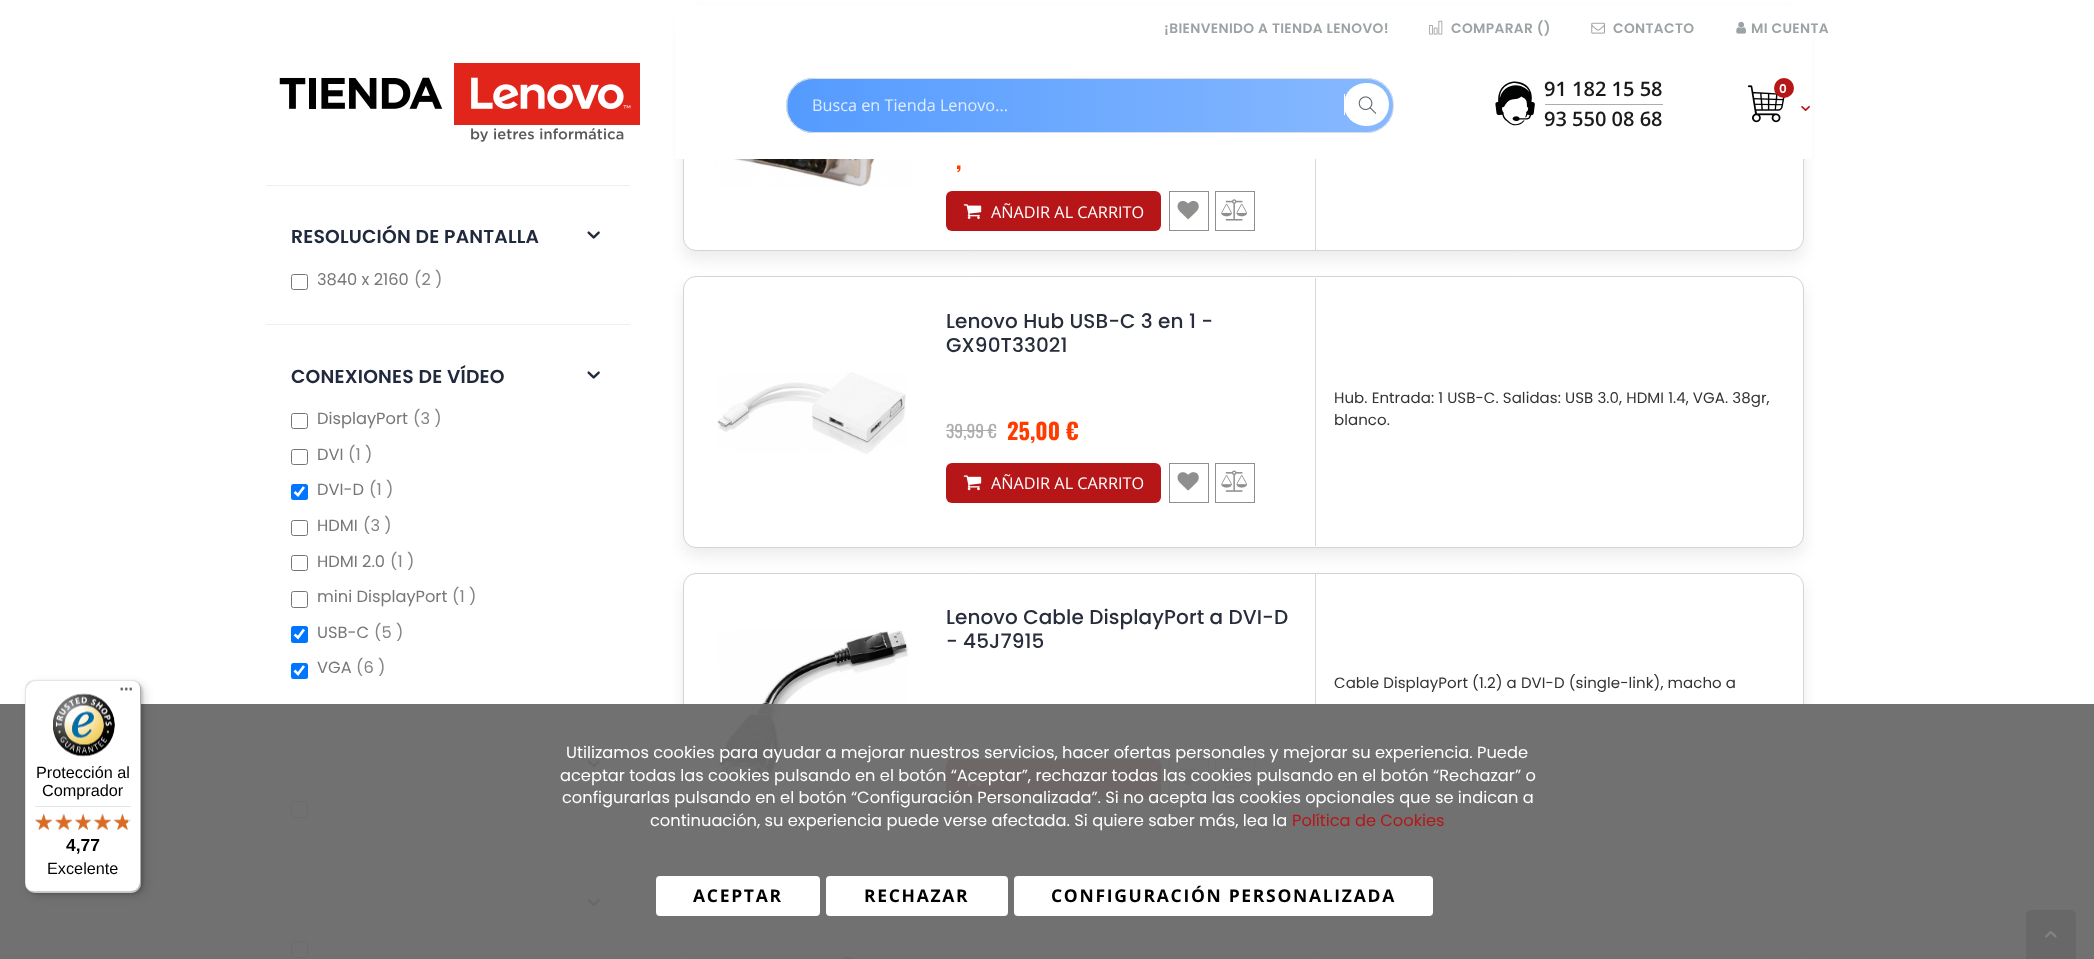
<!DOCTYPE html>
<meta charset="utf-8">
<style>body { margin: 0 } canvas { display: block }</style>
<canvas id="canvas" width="2094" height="959"></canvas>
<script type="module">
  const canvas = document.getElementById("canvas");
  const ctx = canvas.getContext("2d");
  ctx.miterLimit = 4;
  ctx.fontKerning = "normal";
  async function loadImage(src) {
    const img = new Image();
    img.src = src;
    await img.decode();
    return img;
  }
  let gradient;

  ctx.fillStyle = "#ffffff";
  ctx.fillRect(0, 0, 2094, 959);
  ctx.fillStyle = "#ececec";
  ctx.filter = "blur(7.5px)";
  ctx.beginPath();
  ctx.roundRect(683, 14, 1121, 246, 13);
  ctx.fill();
  ctx.filter = "none";
  ctx.fillStyle = "#ffffff";
  ctx.beginPath();
  ctx.roundRect(683.5, 5.5, 1120, 245, 12.5);
  ctx.fill();
  ctx.strokeStyle = "#d4d4d4";
  ctx.stroke();
  ctx.fillRect(675, 5, 1137, 154);
  ctx.letterSpacing = "0.35px";
  ctx.font = "600 13.75px Poppins";
  ctx.fillStyle = "#9da2a5";
  ctx.fillText("¡BIENVENIDO A TIENDA LENOVO!", 1164, 33);
  ctx.drawImage(await loadImage("img1.png"), 1429, 20, 14, 15);
  ctx.fillText("COMPARAR ()", 1451, 33);
  ctx.drawImage(await loadImage("img2.png"), 1591, 22, 14, 12);
  ctx.fillText("CONTACTO", 1613, 33);
  ctx.drawImage(await loadImage("img3.png"), 1736, 21, 11, 13);
  ctx.fillText("MI CUENTA", 1751, 33);
  ctx.drawImage(await loadImage("img4.png"), 279, 63, 361, 79);
  ctx.drawImage(await loadImage("img5.png"), 1495, 81, 40, 45);
  ctx.fillStyle = "#adadad";
  ctx.fillRect(1545, 104, 118, 1);
  ctx.letterSpacing = "0px";
  ctx.font = "600 20px Open Sans";
  ctx.fillStyle = "#1a1a1a";
  ctx.fillText("91 182 15 58", 1544, 96);
  ctx.fillText("93 550 08 68", 1544, 126);
  ctx.drawImage(await loadImage("img6.png"), 1748, 85, 37, 38);
  ctx.fillStyle = "#b61618";
  ctx.beginPath();
  ctx.arc(1784, 88, 10, 0, Math.PI * 2);
  ctx.fill();
  ctx.font = "600 12px Poppins";
  ctx.fillStyle = "#ffffff";
  ctx.fillText("0", 1779, 93);
  ctx.drawImage(await loadImage("img7.png"), 1801, 106, 9, 5);
  ctx.save();
  ctx.beginPath();
  ctx.roundRect(786, 78, 608, 55, 27.5);
  ctx.clip();
  gradient = ctx.createLinearGradient(788, 105, 183, 105);
  gradient.addColorStop(0, "#88b9ff");
  gradient.addColorStop(1, "#549bff");
  ctx.fillStyle = gradient;
  ctx.fillRect(786, 95, 2, 21);
  gradient = ctx.createLinearGradient(1393, 105, 788, 105);
  gradient.addColorStop(0, "#88b9ff");
  gradient.addColorStop(1, "#549bff");
  ctx.fillStyle = gradient;
  ctx.fillRect(788, 78, 605, 55);
  ctx.restore();
  ctx.beginPath();
  ctx.roundRect(786.5, 78.5, 607, 54, 27);
  ctx.strokeStyle = "#dbe0e2";
  ctx.stroke();
  ctx.font = "16.25px Open Sans";
  ctx.fillStyle = "#dfecff";
  ctx.fillText("Busca en Tienda Lenovo...", 812, 111);
  ctx.fillStyle = "#ffffff";
  ctx.beginPath();
  ctx.roundRect(1344, 83, 45, 43, 21.5);
  ctx.fill();
  ctx.fillRect(1344, 94, 1, 21);
  ctx.drawImage(await loadImage("img8.png"), 1358, 96, 18, 18);
  ctx.fillStyle = "#efefef";
  ctx.fillRect(266, 185, 364, 1);
  ctx.letterSpacing = "0.2px";
  ctx.font = "600 18.75px Poppins";
  ctx.fillStyle = "#21293c";
  ctx.fillText("RESOLUCIÓN DE PANTALLA", 291, 243);
  ctx.drawImage(await loadImage("img9.png"), 587, 231, 13, 8);
  ctx.fillStyle = "#efefef";
  ctx.fillRect(266, 324, 364, 1);
  ctx.beginPath();
  ctx.roundRect(291.5, 274.5, 16, 15, 2);
  ctx.strokeStyle = "#767676";
  ctx.stroke();
  ctx.letterSpacing = "0px";
  ctx.font = "16.25px Poppins";
  ctx.fillStyle = "#777777";
  ctx.fillText("3840 x 2160", 317, 285);
  ctx.fillStyle = "#858585";
  ctx.fillText("(2 )", 414, 285);
  ctx.letterSpacing = "0.2px";
  ctx.font = "600 18.75px Poppins";
  ctx.fillStyle = "#21293c";
  ctx.fillText("CONEXIONES DE VÍDEO", 291, 383);
  ctx.drawImage(await loadImage("img9.png"), 587, 371, 13, 8);
  ctx.fillStyle = "#efefef";
  ctx.fillRect(266, 713, 364, 1);
  ctx.beginPath();
  ctx.roundRect(291.5, 413.5, 16, 15, 2);
  ctx.stroke();
  ctx.letterSpacing = "0px";
  ctx.font = "16.25px Poppins";
  ctx.fillStyle = "#777777";
  ctx.fillText("DisplayPort", 317, 424);
  ctx.fillStyle = "#858585";
  ctx.fillText("(3 )", 413, 424);
  ctx.beginPath();
  ctx.roundRect(291.5, 449.5, 16, 15, 2);
  ctx.stroke();
  ctx.fillStyle = "#777777";
  ctx.fillText("DVI", 317, 460);
  ctx.fillStyle = "#858585";
  ctx.fillText("(1 )", 348, 460);
  ctx.fillStyle = "#0075ff";
  ctx.beginPath();
  ctx.roundRect(291, 484, 17, 16, 2.5);
  ctx.fill();
  ctx.beginPath();
  ctx.moveTo(294.5, 492);
  ctx.lineTo(298, 495);
  ctx.lineTo(304, 487);
  ctx.strokeStyle = "#ffffff";
  ctx.lineWidth = 2.6;
  ctx.stroke();
  ctx.fillStyle = "#777777";
  ctx.fillText("DVI-D", 317, 495);
  ctx.fillStyle = "#858585";
  ctx.fillText("(1 )", 369, 495);
  ctx.beginPath();
  ctx.roundRect(291.5, 520.5, 16, 15, 2);
  ctx.strokeStyle = "#767676";
  ctx.lineWidth = 1;
  ctx.stroke();
  ctx.fillStyle = "#777777";
  ctx.fillText("HDMI", 317, 531);
  ctx.fillStyle = "#858585";
  ctx.fillText("(3 )", 363, 531);
  ctx.beginPath();
  ctx.roundRect(291.5, 555.5, 16, 15, 2);
  ctx.stroke();
  ctx.fillStyle = "#777777";
  ctx.fillText("HDMI 2.0", 317, 567);
  ctx.fillStyle = "#858585";
  ctx.fillText("(1 )", 390, 567);
  ctx.beginPath();
  ctx.roundRect(291.5, 591.5, 16, 16, 2);
  ctx.stroke();
  ctx.fillStyle = "#777777";
  ctx.fillText("mini DisplayPort", 317, 602);
  ctx.fillStyle = "#858585";
  ctx.fillText("(1 )", 452, 602);
  ctx.fillStyle = "#0075ff";
  ctx.beginPath();
  ctx.roundRect(291, 626, 17, 17, 2.5);
  ctx.fill();
  ctx.beginPath();
  ctx.moveTo(294.5, 634.5);
  ctx.lineTo(298, 637.5);
  ctx.lineTo(304, 629.5);
  ctx.strokeStyle = "#ffffff";
  ctx.lineWidth = 2.6;
  ctx.stroke();
  ctx.fillStyle = "#777777";
  ctx.fillText("USB-C", 317, 638);
  ctx.fillStyle = "#858585";
  ctx.fillText("(5 )", 374, 638);
  ctx.fillStyle = "#0075ff";
  ctx.beginPath();
  ctx.roundRect(291, 663, 17, 16, 2.5);
  ctx.fill();
  ctx.beginPath();
  ctx.moveTo(294.5, 670.5);
  ctx.lineTo(298, 674);
  ctx.lineTo(304, 666);
  ctx.stroke();
  ctx.fillStyle = "#777777";
  ctx.fillText("VGA", 317, 673);
  ctx.fillStyle = "#858585";
  ctx.fillText("(6 )", 356, 673);
  ctx.drawImage(await loadImage("img10.png"), 587, 760, 13, 8);
  ctx.fillStyle = "#efefef";
  ctx.fillRect(266, 853, 364, 1);
  ctx.beginPath();
  ctx.roundRect(291.5, 801.5, 16, 16, 2);
  ctx.strokeStyle = "#767676";
  ctx.lineWidth = 1;
  ctx.stroke();
  ctx.drawImage(await loadImage("img11.png"), 587, 898, 13, 9);
  ctx.beginPath();
  ctx.roundRect(291.5, 941.5, 16, 16, 2);
  ctx.stroke();
  ctx.drawImage(await loadImage("img12.png"), 714, 159, 199, 28);
  ctx.fillStyle = "#d7d7d7";
  ctx.fillRect(1315, 159, 1, 91);
  ctx.font = "bold 22.5px Oswald";
  ctx.fillStyle = "#ff3c00";
  ctx.fillText(",", 956, 169);
  ctx.fillStyle = "#b61618";
  ctx.beginPath();
  ctx.roundRect(946, 191, 215, 40, 6);
  ctx.fill();
  ctx.drawImage(await loadImage("img13.png"), 963, 204, 19, 15);
  ctx.font = "16.25px Open Sans";
  ctx.fillStyle = "#ffffff";
  ctx.fillText("AÑADIR AL CARRITO", 991, 218);
  ctx.strokeStyle = "#918f8d";
  ctx.strokeRect(1169.5, 191.5, 39, 39);
  ctx.drawImage(await loadImage("img14.png"), 1177, 201, 22, 19);
  ctx.strokeRect(1215.5, 191.5, 39, 39);
  ctx.drawImage(await loadImage("img15.png"), 1221, 199, 26, 22);
  ctx.fillStyle = "#ececec";
  ctx.filter = "blur(7.5px)";
  ctx.beginPath();
  ctx.roundRect(683, 285, 1121, 271, 13);
  ctx.fill();
  ctx.filter = "none";
  ctx.fillStyle = "#ffffff";
  ctx.beginPath();
  ctx.roundRect(683.5, 276.5, 1120, 271, 12.5);
  ctx.fill();
  ctx.strokeStyle = "#d4d4d4";
  ctx.stroke();
  ctx.drawImage(await loadImage("img16.png"), 717, 372, 189, 82);
  ctx.fillStyle = "#d7d7d7";
  ctx.fillRect(1315, 278, 1, 268);
  ctx.letterSpacing = "0.1px";
  ctx.font = "500 20px Poppins";
  ctx.fillStyle = "#282d3b";
  ctx.fillText("Lenovo Hub USB-C 3 en 1 -", 946, 328);
  ctx.fillText("GX90T33021", 946, 352);
  ctx.letterSpacing = "0px";
  ctx.font = "17.5px Oswald";
  ctx.fillStyle = "#adadad";
  ctx.fillText("39,99 €", 946, 438);
  ctx.fillRect(946, 430, 50, 1);
  ctx.font = "bold 22.5px Oswald";
  ctx.fillStyle = "#ff3c00";
  ctx.fillText("25,00 €", 1007, 440);
  ctx.fillStyle = "#b61618";
  ctx.beginPath();
  ctx.roundRect(946, 463, 215, 40, 6);
  ctx.fill();
  ctx.drawImage(await loadImage("img17.png"), 963, 475, 19, 16);
  ctx.font = "16.25px Open Sans";
  ctx.fillStyle = "#ffffff";
  ctx.fillText("AÑADIR AL CARRITO", 991, 489);
  ctx.strokeStyle = "#918f8d";
  ctx.strokeRect(1169.5, 463.5, 39, 39);
  ctx.drawImage(await loadImage("img18.png"), 1177, 472, 22, 19);
  ctx.strokeRect(1215.5, 463.5, 39, 39);
  ctx.drawImage(await loadImage("img19.png"), 1221, 470, 26, 22);
  ctx.letterSpacing = "0.07px";
  ctx.font = "15px Poppins";
  ctx.fillStyle = "#333333";
  ctx.fillText("Hub. Entrada: 1 USB-C. Salidas: USB 3.0, HDMI 1.4, VGA. 38gr,", 1334, 403);
  ctx.fillText("blanco.", 1334, 425);
  ctx.fillStyle = "#ececec";
  ctx.filter = "blur(7.5px)";
  ctx.beginPath();
  ctx.roundRect(683, 581, 1121, 272, 13);
  ctx.fill();
  ctx.filter = "none";
  ctx.fillStyle = "#ffffff";
  ctx.beginPath();
  ctx.roundRect(683.5, 573.5, 1120, 270, 12.5);
  ctx.fill();
  ctx.strokeStyle = "#d4d4d4";
  ctx.stroke();
  ctx.drawImage(await loadImage("img20.png"), 718, 630, 191, 158);
  ctx.fillStyle = "#d7d7d7";
  ctx.fillRect(1315, 574, 1, 269);
  ctx.letterSpacing = "0.1px";
  ctx.font = "500 20px Poppins";
  ctx.fillStyle = "#282d3b";
  ctx.fillText("Lenovo Cable DisplayPort a DVI-D", 946, 624);
  ctx.fillText("- 45J7915", 946, 648);
  ctx.fillStyle = "#b61618";
  ctx.beginPath();
  ctx.roundRect(946, 759, 215, 40, 6);
  ctx.fill();
  ctx.drawImage(await loadImage("img21.png"), 963, 771, 19, 16);
  ctx.strokeStyle = "#918f8d";
  ctx.strokeRect(1169.5, 759.5, 39, 39);
  ctx.drawImage(await loadImage("img22.png"), 1177, 768, 22, 19);
  ctx.strokeRect(1215.5, 759.5, 39, 39);
  ctx.drawImage(await loadImage("img23.png"), 1221, 766, 26, 23);
  ctx.letterSpacing = "0.07px";
  ctx.font = "15px Poppins";
  ctx.fillStyle = "#333333";
  ctx.fillText("Cable DisplayPort (1.2) a DVI-D (single-link), macho a", 1334, 688);
  ctx.fillStyle = "#ececec";
  ctx.filter = "blur(7.5px)";
  ctx.beginPath();
  ctx.roundRect(683, 878, 1121, 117, 13);
  ctx.fill();
  ctx.filter = "none";
  ctx.fillStyle = "#ffffff";
  ctx.beginPath();
  ctx.roundRect(683.5, 869.5, 1120, 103, 12.5);
  ctx.fill();
  ctx.strokeStyle = "#d4d4d4";
  ctx.stroke();
  ctx.drawImage(await loadImage("img24.png"), 841, 956, 18, 3);
  ctx.fillStyle = "#d7d7d7";
  ctx.fillRect(1315, 870, 1, 89);
  ctx.fillStyle = "rgba(107, 107, 107, 0.96)";
  ctx.fillRect(0, 704, 2094, 255);
  ctx.fillStyle = "#686868";
  ctx.beginPath();
  ctx.moveTo(2032, 910);
  ctx.lineTo(2070, 910);
  ctx.bezierCurveTo(2073.5, 910, 2076, 912.5, 2076, 916);
  ctx.lineTo(2076, 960);
  ctx.lineTo(2026, 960);
  ctx.lineTo(2026, 916);
  ctx.bezierCurveTo(2026, 912.5, 2028.5, 910, 2032, 910);
  ctx.closePath();
  ctx.fill();
  ctx.drawImage(await loadImage("img25.png"), 2045, 931, 12, 7);
  ctx.fillStyle = "rgba(0, 0, 0, 0.15)";
  ctx.filter = "blur(5px)";
  ctx.beginPath();
  ctx.roundRect(29, 684, 116, 212, 10);
  ctx.fill();
  ctx.filter = "none";
  ctx.filter = "blur(1px)";
  ctx.beginPath();
  ctx.roundRect(26, 681, 117, 213, 10);
  ctx.fill();
  ctx.filter = "none";
  ctx.fillStyle = "#ffffff";
  ctx.beginPath();
  ctx.roundRect(25, 680, 116, 213, 10);
  ctx.fill();
  ctx.fillStyle = "rgba(0, 0, 0, 0.1)";
  ctx.beginPath();
  ctx.moveTo(36, 681);
  ctx.lineTo(132, 681);
  ctx.bezierCurveTo(135, 681, 137, 682, 139, 683);
  ctx.bezierCurveTo(137, 681, 134, 680, 131, 680);
  ctx.lineTo(35, 680);
  ctx.bezierCurveTo(29, 680, 25, 684, 25, 690);
  ctx.lineTo(25, 883);
  ctx.bezierCurveTo(25, 887, 27, 890, 30, 892);
  ctx.bezierCurveTo(28, 890, 26, 887, 26, 884);
  ctx.lineTo(26, 691);
  ctx.bezierCurveTo(26, 686, 31, 681, 36, 681);
  ctx.closePath();
  ctx.fill();
  ctx.fillStyle = "rgba(0, 0, 0, 0.2)";
  ctx.beginPath();
  ctx.moveTo(26, 887);
  ctx.bezierCurveTo(28, 891, 31, 893, 35, 893);
  ctx.lineTo(131, 893);
  ctx.bezierCurveTo(137, 893, 141, 889, 141, 883);
  ctx.lineTo(141, 690);
  ctx.bezierCurveTo(141, 688, 140, 685, 139, 684);
  ctx.bezierCurveTo(140, 685, 140, 687, 140, 689);
  ctx.lineTo(140, 881);
  ctx.bezierCurveTo(140, 887, 136, 891, 130, 891);
  ctx.lineTo(34, 891);
  ctx.bezierCurveTo(31, 891, 28, 890, 26, 887);
  ctx.closePath();
  ctx.fill();
  ctx.fillStyle = "rgba(50, 50, 50, 0.2)";
  ctx.beginPath();
  ctx.moveTo(26, 888);
  ctx.bezierCurveTo(28, 891, 31, 893, 35, 893);
  ctx.lineTo(131, 893);
  ctx.bezierCurveTo(137, 893, 141, 889, 141, 883);
  ctx.lineTo(141, 690);
  ctx.bezierCurveTo(141, 687, 140, 684, 137, 682);
  ctx.bezierCurveTo(139, 684, 140, 687, 140, 689);
  ctx.lineTo(140, 882);
  ctx.bezierCurveTo(140, 887, 136, 892, 130, 892);
  ctx.lineTo(34, 892);
  ctx.bezierCurveTo(31, 892, 28, 890, 26, 888);
  ctx.closePath();
  ctx.fill();
  ctx.drawImage(await loadImage("img26.png"), 120, 687, 12, 4);
  ctx.fillStyle = "rgba(255, 255, 255, 0.3)";
  ctx.beginPath();
  ctx.moveTo(26, 888);
  ctx.bezierCurveTo(28, 891, 31, 893, 35, 893);
  ctx.lineTo(131, 893);
  ctx.bezierCurveTo(137, 893, 141, 889, 141, 883);
  ctx.lineTo(141, 882);
  ctx.bezierCurveTo(141, 887, 136, 892, 131, 892);
  ctx.lineTo(34, 892);
  ctx.bezierCurveTo(31, 892, 28, 890, 26, 888);
  ctx.closePath();
  ctx.fill();
  ctx.drawImage(await loadImage("img27.png"), 53, 693, 62, 64);
  ctx.letterSpacing = "0px";
  ctx.font = "16.25px Liberation Sans";
  ctx.fillStyle = "#000000";
  ctx.fillText("Protección al", 36, 778);
  ctx.fillText("Comprador", 42, 796);
  ctx.fillStyle = "#e5e5e5";
  ctx.fillRect(35, 806, 96, 1);
  ctx.drawImage(await loadImage("img33.png"), 35, 814, 17, 16);
  ctx.drawImage(await loadImage("img28.png"), 35, 813, 17, 17);
  ctx.drawImage(await loadImage("img34.png"), 55, 814, 17, 16);
  ctx.drawImage(await loadImage("img29.png"), 55, 813, 18, 17);
  ctx.drawImage(await loadImage("img35.png"), 75, 814, 16, 16);
  ctx.drawImage(await loadImage("img30.png"), 75, 813, 16, 17);
  ctx.drawImage(await loadImage("img36.png"), 93, 814, 18, 16);
  ctx.drawImage(await loadImage("img31.png"), 93, 813, 18, 17);
  ctx.drawImage(await loadImage("img37.png"), 114, 814, 17, 16);
  ctx.drawImage(await loadImage("img32.png"), 114, 813, 14, 17);
  ctx.font = "bold 17.5px Liberation Sans";
  ctx.fillStyle = "#000000";
  ctx.fillText("4,77", 66, 851);
  ctx.font = "16.25px Liberation Sans";
  ctx.fillText("Excelente", 47, 874);
  ctx.font = "16.25px Poppins";
  ctx.fillStyle = "#ffffff";
  ctx.fillText("Utilizamos cookies para ayudar a mejorar nuestros servicios, hacer ofertas personales y mejorar su experiencia. Puede", 566, 758);
  ctx.fillText("aceptar todas las cookies pulsando en el botón “Aceptar”, rechazar todas las cookies pulsando en el botón “Rechazar” o", 560, 781);
  ctx.fillText("configurarlas pulsando en el botón “Configuración Personalizada”. Si no acepta las cookies opcionales que se indican a", 562, 803);
  ctx.fillText("continuación, su experiencia puede verse afectada. Si quiere saber más, lea la", 650, 826);
  ctx.fillStyle = "#b61618";
  ctx.fillText("Política de Cookies", 1292, 826);
  ctx.fillStyle = "#ffffff";
  ctx.beginPath();
  ctx.roundRect(656, 876, 164, 40, 4);
  ctx.fill();
  ctx.letterSpacing = "1.7px";
  ctx.font = "bold 17.5px Open Sans";
  ctx.fillStyle = "#000000";
  ctx.fillText("ACEPTAR", 693, 902);
  ctx.fillStyle = "#ffffff";
  ctx.beginPath();
  ctx.roundRect(826, 876, 182, 40, 4);
  ctx.fill();
  ctx.fillStyle = "#000000";
  ctx.fillText("RECHAZAR", 864, 902);
  ctx.fillStyle = "#ffffff";
  ctx.beginPath();
  ctx.roundRect(1014, 876, 419, 40, 4);
  ctx.fill();
  ctx.fillStyle = "#000000";
  ctx.fillText("CONFIGURACIÓN PERSONALIZADA", 1051, 902);
</script>
